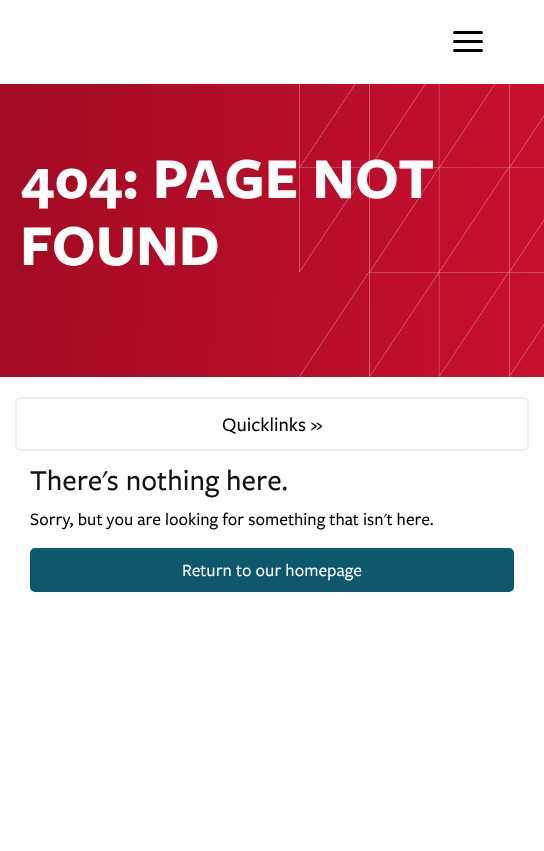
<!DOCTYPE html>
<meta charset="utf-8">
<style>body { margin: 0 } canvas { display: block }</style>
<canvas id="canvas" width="544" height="851"></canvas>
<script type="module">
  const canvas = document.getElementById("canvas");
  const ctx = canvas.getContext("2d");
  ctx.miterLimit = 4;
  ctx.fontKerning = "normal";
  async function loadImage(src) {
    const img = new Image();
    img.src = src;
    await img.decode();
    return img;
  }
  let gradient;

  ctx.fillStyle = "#ffffff";
  ctx.fillRect(0, 0, 544, 851);
  ctx.fillStyle = "#000000";
  ctx.beginPath();
  ctx.roundRect(453, 31, 30, 3, 1.5);
  ctx.fill();
  ctx.beginPath();
  ctx.roundRect(453, 40, 30, 3, 1.5);
  ctx.fill();
  ctx.beginPath();
  ctx.roundRect(453, 49, 30, 3, 1.5);
  ctx.fill();
  gradient = ctx.createLinearGradient(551, 235, -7.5, 205);
  gradient.addColorStop(0, "#c8102e");
  gradient.addColorStop(1, "#a30a23");
  ctx.fillStyle = gradient;
  ctx.fillRect(0, 84, 544, 293);
  ctx.font = "bold 60px 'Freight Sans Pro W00'";
  ctx.fillStyle = "#ffffff";
  ctx.fillText("404: PAGE NOT", 20, 198);
  ctx.drawImage(await loadImage("img1.png"), 299, 84, 245, 293);
  ctx.fillText("FOUND", 20, 265);
  ctx.beginPath();
  ctx.roundRect(16, 398, 512, 52, 4);
  ctx.strokeStyle = "#eeeeee";
  ctx.lineWidth = 2;
  ctx.stroke();
  ctx.font = "500 20px 'Freight Sans Pro W00'";
  ctx.fillStyle = "#000000";
  ctx.fillText("Quicklinks »", 222, 431);
  ctx.font = "500 30px 'Freight Sans Pro W00'";
  ctx.fillStyle = "#111111";
  ctx.fillText("There's nothing here.", 30, 490);
  ctx.font = "500 18px 'Freight Sans Pro W00'";
  ctx.fillStyle = "#000000";
  ctx.fillText("Sorry, but you are looking for something that isn't here.", 30, 525);
  ctx.fillStyle = "#0e586e";
  ctx.beginPath();
  ctx.roundRect(31, 549, 482, 42, 4);
  ctx.fill();
  ctx.strokeStyle = "#0e586e";
  ctx.stroke();
  ctx.fillStyle = "#ffffff";
  ctx.fillText("Return to our homepage", 182, 576);
</script>
